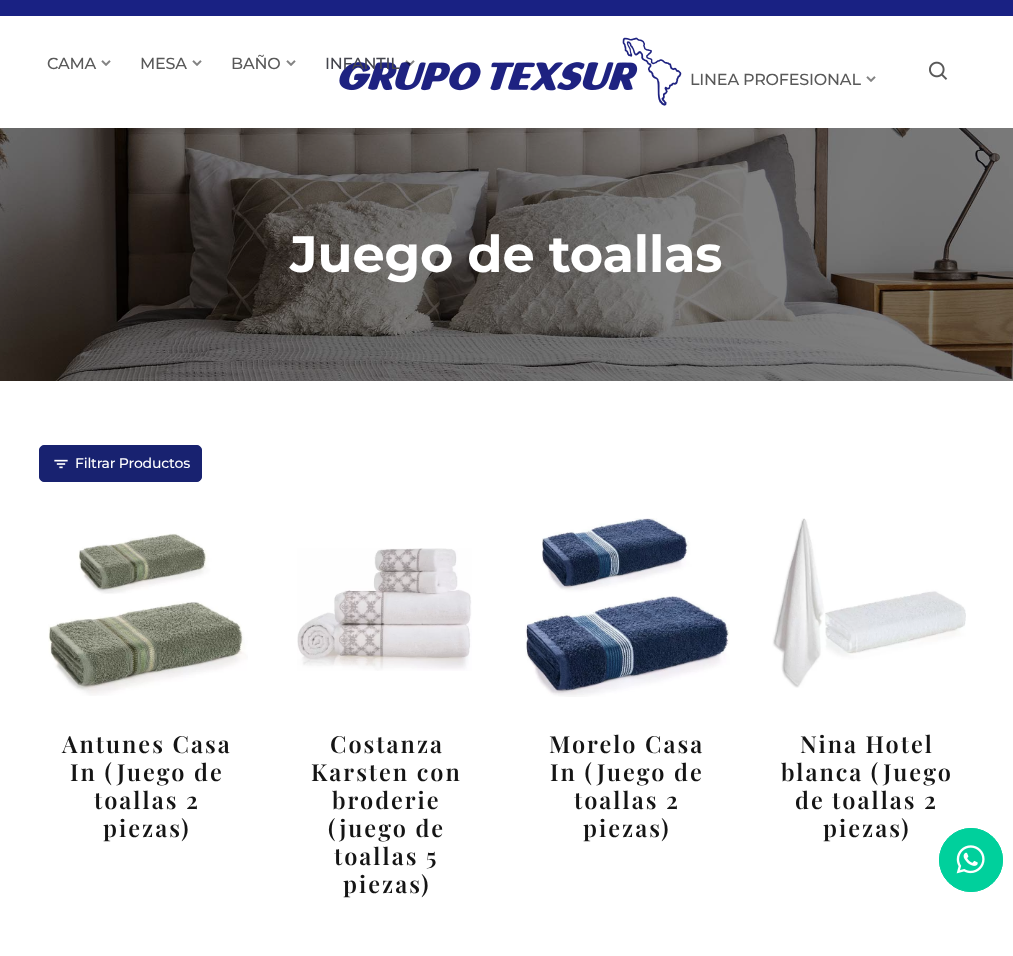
<!DOCTYPE html>
<meta charset="utf-8">
<style>body { margin: 0 } canvas { display: block }</style>
<canvas id="canvas" width="1013" height="956"></canvas>
<script type="module">
  const canvas = document.getElementById("canvas");
  const ctx = canvas.getContext("2d");
  ctx.miterLimit = 4;
  ctx.fontKerning = "normal";
  async function loadImage(src) {
    const img = new Image();
    img.src = src;
    await img.decode();
    return img;
  }

  ctx.fillStyle = "#ffffff";
  ctx.fillRect(0, 0, 1013, 956);
  ctx.fillStyle = "#192183";
  ctx.fillRect(0, 0, 1013, 16);
  ctx.drawImage(await loadImage("img1.png"), 339, 37, 343, 69);
  ctx.letterSpacing = "-0.2px";
  ctx.font = "500 16px Montserrat";
  ctx.fillStyle = "#595959";
  ctx.fillText("CAMA", 47, 69);
  ctx.drawImage(await loadImage("img2.png"), 101, 60, 10, 6);
  ctx.fillText("MESA", 140, 69);
  ctx.drawImage(await loadImage("img2.png"), 192, 60, 10, 6);
  ctx.fillText("BAÑO", 231, 69);
  ctx.drawImage(await loadImage("img2.png"), 286, 60, 10, 6);
  ctx.fillStyle = "#44454d";
  ctx.fillText("INFANTIL", 325, 69);
  ctx.drawImage(await loadImage("img3.png"), 405, 60, 10, 6);
  ctx.fillStyle = "#595959";
  ctx.fillText("LINEA PROFESIONAL", 690, 85);
  ctx.drawImage(await loadImage("img2.png"), 866, 76, 10, 6);
  ctx.drawImage(await loadImage("img4.png"), 929, 61, 19, 19);
  ctx.fillStyle = "#000000";
  ctx.fillRect(0, 128, 1013, 253);
  ctx.drawImage(await loadImage("img5.png"), 0, 128, 1013, 253);
  ctx.font = "bold 51px Montserrat";
  ctx.fillStyle = "#ffffff";
  ctx.fillText("Juego de toallas", 290, 272);
  ctx.fillStyle = "#182270";
  ctx.beginPath();
  ctx.roundRect(39.5, 445.5, 162, 36, 4.5);
  ctx.fill();
  ctx.strokeStyle = "#182270";
  ctx.stroke();
  ctx.drawImage(await loadImage("img6.png"), 54, 459, 14, 10);
  ctx.font = "500 14px Montserrat";
  ctx.fillStyle = "#ffffff";
  ctx.fillText("Filtrar Productos", 75, 468);
  ctx.drawImage(await loadImage("img7.png"), 48, 533, 200, 163);
  ctx.letterSpacing = "2px";
  ctx.font = "600 23.5px Playfair Display";
  ctx.fillStyle = "#151515";
  ctx.fillText("Antunes Casa", 62, 753);
  ctx.fillText("In (Juego de", 70, 781);
  ctx.fillText("toallas 2", 94, 809);
  ctx.fillText("piezas)", 103, 837);
  ctx.drawImage(await loadImage("img8.png"), 297, 548, 175, 123);
  ctx.fillText("Costanza", 330, 753);
  ctx.fillText("Karsten con", 311, 781);
  ctx.fillText("broderie", 332, 809);
  ctx.fillText("(juego de", 328, 837);
  ctx.fillText("toallas 5", 334, 865);
  ctx.fillText("piezas)", 343, 893);
  ctx.drawImage(await loadImage("img9.png"), 525, 518, 205, 179);
  ctx.fillText("Morelo Casa", 549, 753);
  ctx.fillText("In (Juego de", 550, 781);
  ctx.fillText("toallas 2", 574, 809);
  ctx.fillText("piezas)", 583, 837);
  ctx.drawImage(await loadImage("img10.png"), 772, 518, 194, 170);
  ctx.fillText("Nina Hotel", 800, 753);
  ctx.fillText("blanca (Juego", 781, 781);
  ctx.fillText("de toallas 2", 795, 809);
  ctx.fillText("piezas)", 823, 837);
  ctx.fillStyle = "#00d09c";
  ctx.beginPath();
  ctx.arc(971, 860, 31.5, 0, Math.PI * 2);
  ctx.fill();
  ctx.strokeStyle = "#00d09c";
  ctx.stroke();
  ctx.drawImage(await loadImage("img11.png"), 956, 845, 29, 29);
  ctx.beginPath();
  ctx.arc(971, 860, 31.5, 0, Math.PI * 2);
  ctx.stroke();
</script>
